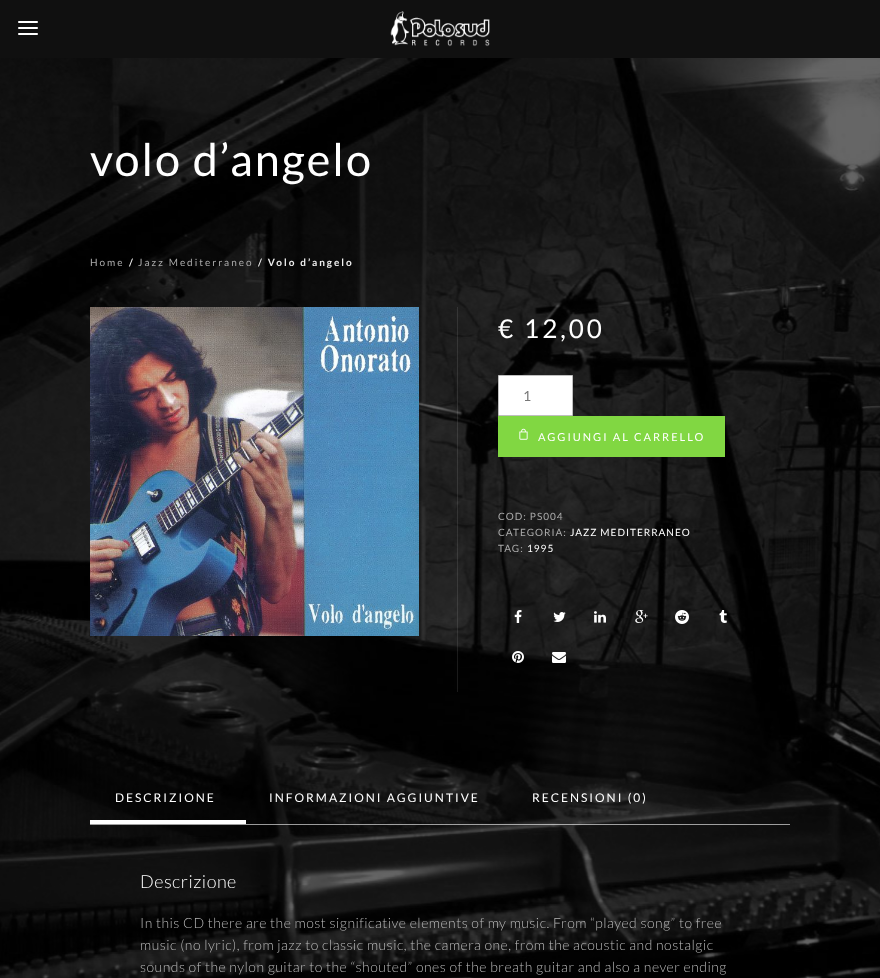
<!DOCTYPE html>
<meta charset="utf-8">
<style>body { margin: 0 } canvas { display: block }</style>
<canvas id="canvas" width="880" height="978"></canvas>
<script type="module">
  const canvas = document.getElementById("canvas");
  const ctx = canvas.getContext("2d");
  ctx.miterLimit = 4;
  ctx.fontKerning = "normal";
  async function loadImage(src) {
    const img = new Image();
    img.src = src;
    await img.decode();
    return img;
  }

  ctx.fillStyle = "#ffffff";
  ctx.fillRect(0, 0, 880, 978);
  ctx.fillStyle = "#101010";
  ctx.fillRect(0, 0, 880, 58);
  ctx.drawImage(await loadImage("img1.png"), 390, 11, 100, 36);
  ctx.drawImage(await loadImage("img2.png"), 18, 21, 20, 14);
  ctx.drawImage(await loadImage("img3.png"), 0, 58, 880, 920);
  ctx.letterSpacing = "2px";
  ctx.font = "45px Lato";
  ctx.fillStyle = "#ffffff";
  ctx.fillText("volo d’angelo", 90, 176);
  ctx.font = "10px Lato";
  ctx.fillStyle = "#aaaaaa";
  ctx.fillText("Home", 90, 266);
  ctx.font = "bold 10px Lato";
  ctx.fillStyle = "#eeeeee";
  ctx.fillText("/", 129, 266);
  ctx.font = "10px Lato";
  ctx.fillStyle = "#aaaaaa";
  ctx.fillText("Jazz Mediterraneo", 138, 266);
  ctx.font = "bold 10px Lato";
  ctx.fillStyle = "#eeeeee";
  ctx.fillText("/ Volo d’angelo", 258, 266);
  ctx.drawImage(await loadImage("img4.png"), 90, 307, 329, 329);
  ctx.fillStyle = "rgba(255, 255, 255, 0.1)";
  ctx.fillRect(457, 307, 1, 385);
  ctx.letterSpacing = "3px";
  ctx.font = "26px Lato";
  ctx.fillStyle = "#ffffff";
  ctx.fillText("€ 12,00", 498, 338);
  ctx.beginPath();
  ctx.rect(498.5, 375.5, 74, 40);
  ctx.fill();
  ctx.strokeStyle = "#bfbfbf";
  ctx.stroke();
  ctx.letterSpacing = "1px";
  ctx.font = "14px Lato";
  ctx.fillStyle = "#777777";
  ctx.fillText("1", 523, 401);
  ctx.fillStyle = "#81d742";
  ctx.fillRect(498, 416, 227, 41);
  ctx.drawImage(await loadImage("img5.png"), 519, 428, 9, 12);
  ctx.letterSpacing = "2px";
  ctx.font = "11px Lato";
  ctx.fillStyle = "#ffffff";
  ctx.fillText("AGGIUNGI AL CARRELLO", 538, 441);
  ctx.letterSpacing = "1px";
  ctx.font = "10px Lato";
  ctx.fillStyle = "#aaaaaa";
  ctx.fillText("COD: PS004", 498, 520);
  ctx.fillText("CATEGORIA:", 498, 536);
  ctx.fillStyle = "#ffffff";
  ctx.fillText("JAZZ MEDITERRANEO", 570, 536);
  ctx.fillStyle = "#aaaaaa";
  ctx.fillText("TAG:", 498, 552);
  ctx.fillStyle = "#ffffff";
  ctx.fillText("1995", 527, 552);
  ctx.drawImage(await loadImage("img6.png"), 514, 610, 8, 13);
  ctx.drawImage(await loadImage("img7.png"), 553, 612, 13, 10);
  ctx.drawImage(await loadImage("img8.png"), 594, 611, 12, 12);
  ctx.drawImage(await loadImage("img9.png"), 635, 610, 13, 13);
  ctx.drawImage(await loadImage("img10.png"), 675, 610, 14, 14);
  ctx.drawImage(await loadImage("img11.png"), 719, 610, 8, 13);
  ctx.drawImage(await loadImage("img12.png"), 512, 651, 12, 12);
  ctx.drawImage(await loadImage("img13.png"), 552, 652, 14, 11);
  ctx.fillStyle = "rgba(255, 255, 255, 0.6)";
  ctx.fillRect(90, 824, 700, 1);
  ctx.letterSpacing = "2px";
  ctx.font = "12px Lato";
  ctx.fillStyle = "#ffffff";
  ctx.fillText("DESCRIZIONE", 115, 802);
  ctx.fillRect(90, 820, 156, 4);
  ctx.fillText("INFORMAZIONI AGGIUNTIVE", 269, 802);
  ctx.fillText("RECENSIONI (0)", 532, 802);
  ctx.letterSpacing = "0.5px";
  ctx.font = "300 18px Lato";
  ctx.fillText("Descrizione", 140, 888);
  ctx.font = "300 14px Lato";
  ctx.fillStyle = "#b8b8b8";
  ctx.fillText("In this CD there are the most significative elements of my music. From “played song” to free", 140, 928);
  ctx.fillText("music (no lyric), from jazz to classic music, the camera one, from the acoustic and nostalgic", 140, 950);
  ctx.fillText("sounds of the nylon guitar to the “shouted” ones of the breath guitar and also a never ending", 140, 972);
</script>
